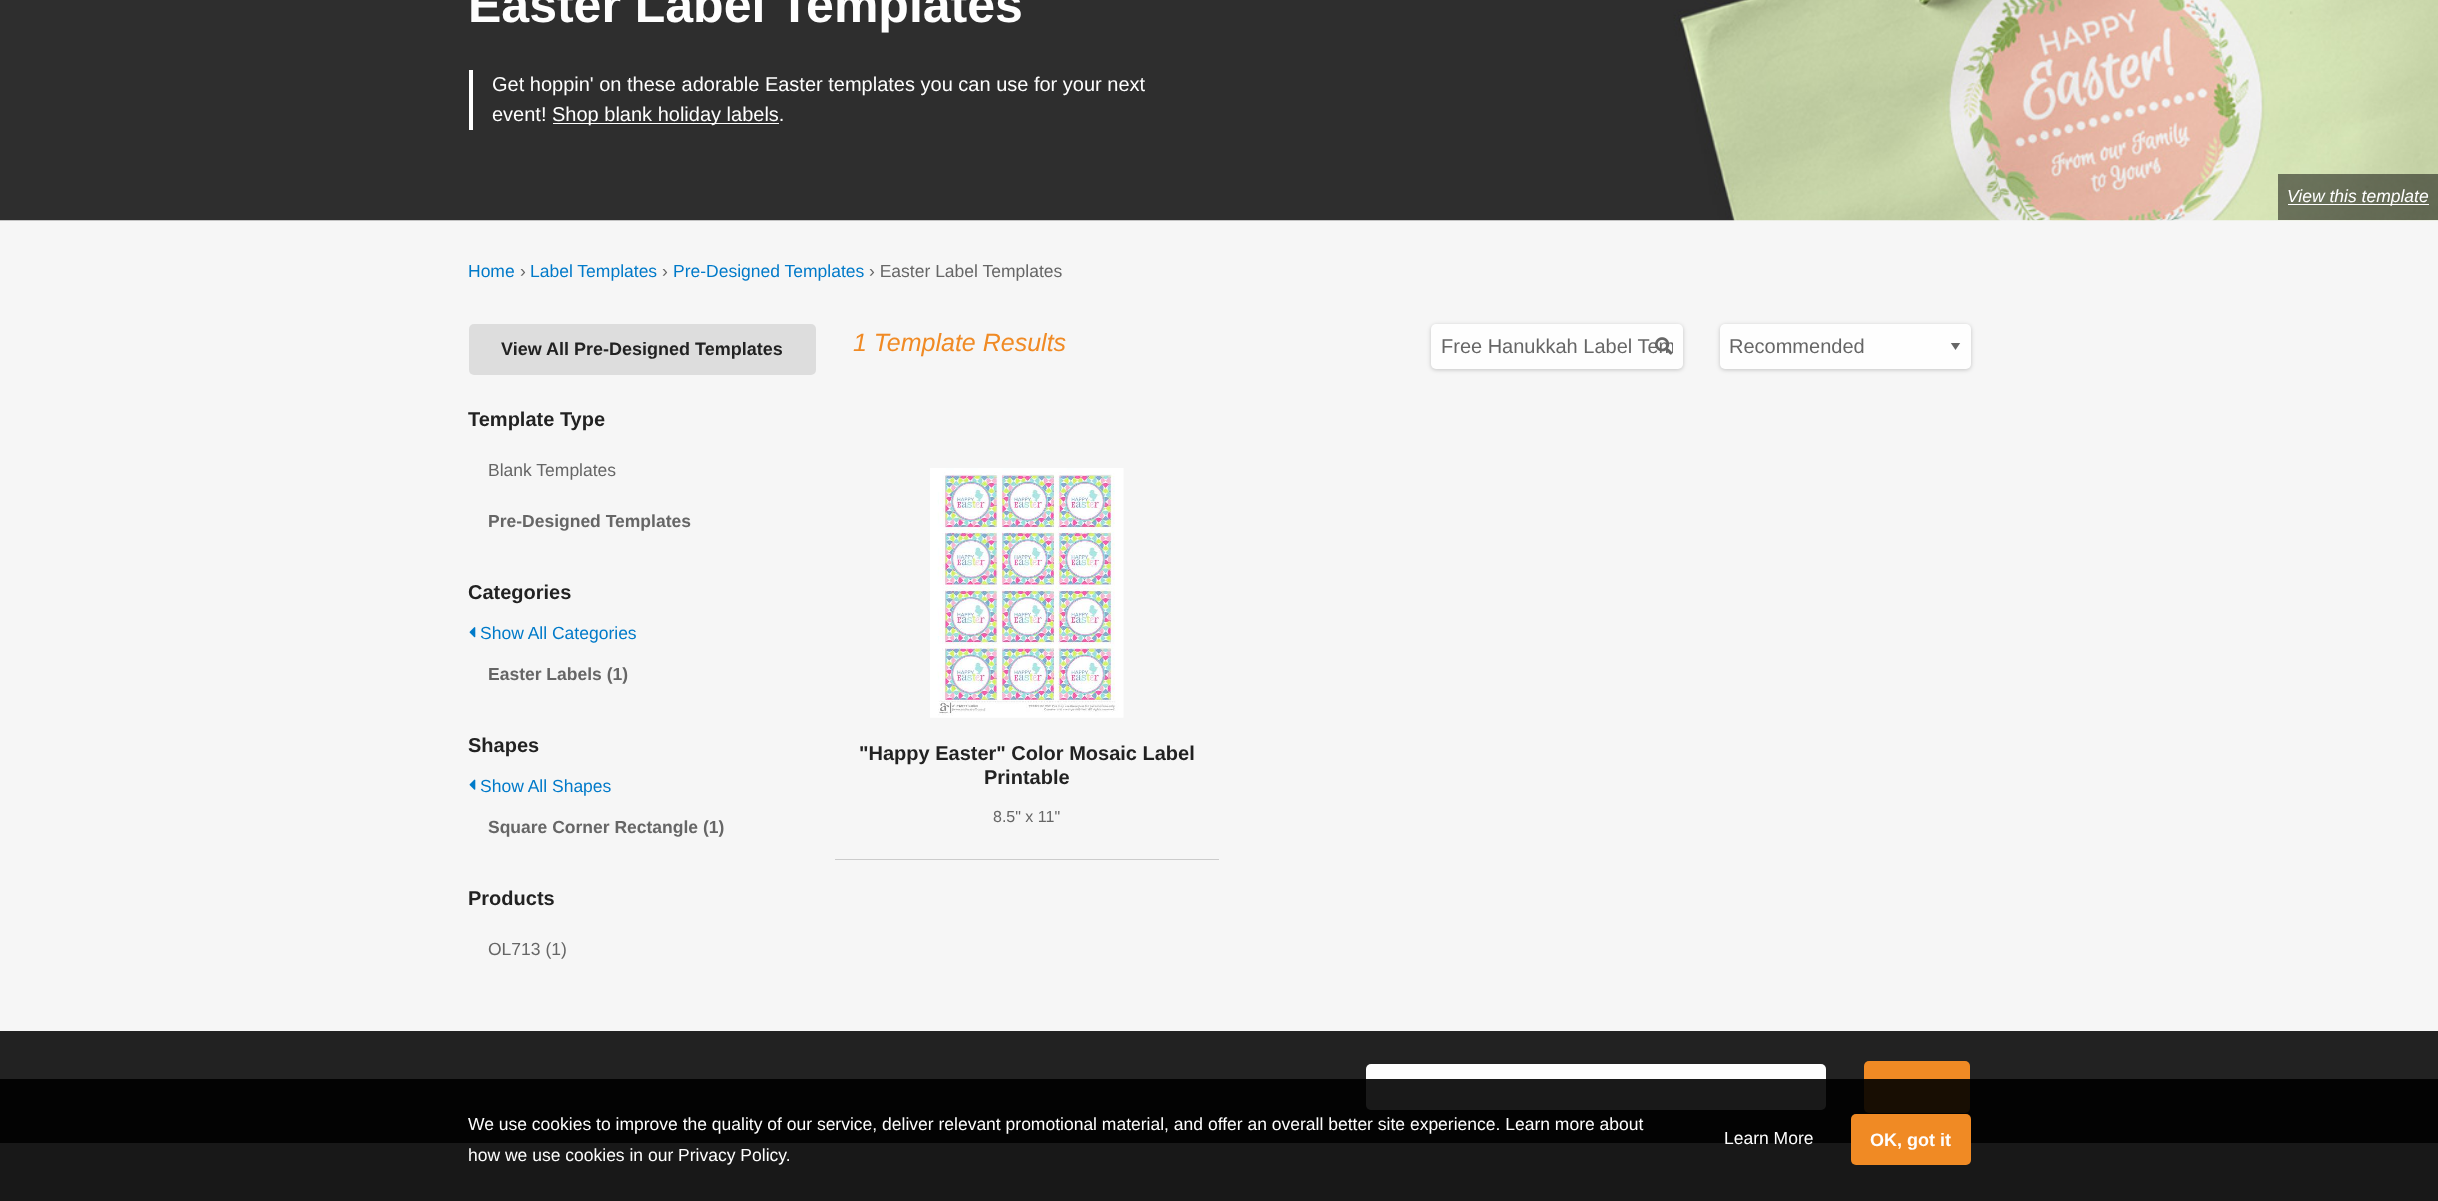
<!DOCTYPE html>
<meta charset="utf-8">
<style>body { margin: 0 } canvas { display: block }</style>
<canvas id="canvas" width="2438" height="1201"></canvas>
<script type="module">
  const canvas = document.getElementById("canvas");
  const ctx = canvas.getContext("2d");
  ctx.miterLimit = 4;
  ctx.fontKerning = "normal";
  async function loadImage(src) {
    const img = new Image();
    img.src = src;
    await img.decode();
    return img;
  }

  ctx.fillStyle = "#f6f6f6";
  ctx.fillRect(0, 0, 2438, 1201);
  ctx.drawImage(await loadImage("img1.png"), 0, 0, 2438, 221);
  ctx.font = "bold 50px Liberation Sans";
  ctx.fillStyle = "#fefefe";
  ctx.fillText("Easter Label Templates", 468, 22);
  ctx.fillRect(469, 70, 4, 60);
  ctx.font = "20px Liberation Sans";
  ctx.fillText("Get hoppin' on these adorable Easter templates you can use for your next", 492, 91);
  ctx.fillText("event!", 492, 121);
  ctx.fillRect(553, 123, 226, 1);
  ctx.fillText("Shop blank holiday labels.", 552, 121);
  ctx.fillStyle = "rgba(0, 0, 0, 0.5)";
  ctx.fillRect(2278, 174, 160, 46);
  ctx.fillStyle = "#ffffff";
  ctx.fillRect(2288, 204, 141, 1);
  ctx.font = "italic 17.5px Liberation Sans";
  ctx.fillStyle = "#fefefe";
  ctx.fillText("View this template", 2287, 202);
  ctx.font = "17.5px Liberation Sans";
  ctx.fillStyle = "#007ac9";
  ctx.fillText("Home", 468, 277);
  ctx.fillStyle = "#666666";
  ctx.fillText("›", 520, 277);
  ctx.fillStyle = "#007ac9";
  ctx.fillText("Label Templates", 530, 277);
  ctx.fillStyle = "#666666";
  ctx.fillText("›", 662, 277);
  ctx.fillStyle = "#007ac9";
  ctx.fillText("Pre-Designed Templates", 673, 277);
  ctx.fillStyle = "#666666";
  ctx.fillText("› Easter Label Templates", 869, 277);
  ctx.fillStyle = "#dddddd";
  ctx.beginPath();
  ctx.roundRect(469, 324, 347, 51, 5);
  ctx.fill();
  ctx.font = "bold 18px Liberation Sans";
  ctx.fillStyle = "#222222";
  ctx.fillText("View All Pre-Designed Templates", 501, 355);
  ctx.font = "bold 20px Liberation Sans";
  ctx.fillText("Template Type", 468, 426);
  ctx.font = "17.5px Liberation Sans";
  ctx.fillStyle = "#666666";
  ctx.fillText("Blank Templates", 488, 476);
  ctx.font = "bold 17.5px Liberation Sans";
  ctx.fillText("Pre-Designed Templates", 488, 527);
  ctx.font = "bold 20px Liberation Sans";
  ctx.fillStyle = "#222222";
  ctx.fillText("Categories", 468, 599);
  ctx.drawImage(await loadImage("img2.png"), 469, 627, 7, 11);
  ctx.font = "17.5px Liberation Sans";
  ctx.fillStyle = "#007ac9";
  ctx.fillText("Show All Categories", 480, 639);
  ctx.font = "bold 17.5px Liberation Sans";
  ctx.fillStyle = "#666666";
  ctx.fillText("Easter Labels (1)", 488, 680);
  ctx.font = "bold 20px Liberation Sans";
  ctx.fillStyle = "#222222";
  ctx.fillText("Shapes", 468, 752);
  ctx.drawImage(await loadImage("img3.png"), 469, 779, 7, 11);
  ctx.font = "17.5px Liberation Sans";
  ctx.fillStyle = "#007ac9";
  ctx.fillText("Show All Shapes", 480, 792);
  ctx.font = "bold 17.5px Liberation Sans";
  ctx.fillStyle = "#666666";
  ctx.fillText("Square Corner Rectangle (1)", 488, 833);
  ctx.font = "bold 20px Liberation Sans";
  ctx.fillStyle = "#222222";
  ctx.fillText("Products", 468, 905);
  ctx.font = "17.5px Liberation Sans";
  ctx.fillStyle = "#666666";
  ctx.fillText("OL713 (1)", 488, 955);
  ctx.font = "italic 25px Liberation Sans";
  ctx.fillStyle = "#f08a24";
  ctx.fillText("1 Template Results", 853, 351);
  ctx.fillStyle = "rgba(0, 0, 0, 0.2)";
  ctx.filter = "blur(2px)";
  ctx.beginPath();
  ctx.roundRect(1431, 325, 252, 45, 5);
  ctx.fill();
  ctx.filter = "none";
  ctx.fillStyle = "#fefefe";
  ctx.beginPath();
  ctx.roundRect(1431, 324, 252, 45, 5);
  ctx.fill();
  ctx.save();
  ctx.beginPath();
  ctx.rect(1441, 335, 232, 23);
  ctx.clip();
  ctx.font = "20px Liberation Sans";
  ctx.fillStyle = "#666666";
  ctx.fillText("Free Hanukkah Label Tem", 1441, 353);
  ctx.restore();
  ctx.drawImage(await loadImage("img4.png"), 1655, 337, 18, 18);
  ctx.fillStyle = "rgba(0, 0, 0, 0.2)";
  ctx.filter = "blur(2px)";
  ctx.beginPath();
  ctx.roundRect(1720, 325, 251, 45, 5);
  ctx.fill();
  ctx.filter = "none";
  ctx.fillStyle = "#fefefe";
  ctx.beginPath();
  ctx.roundRect(1720, 324, 251, 45, 5);
  ctx.fill();
  ctx.save();
  ctx.beginPath();
  ctx.rect(1950, 343, 11, 7);
  ctx.clip();
  ctx.fillStyle = "#666666";
  ctx.beginPath();
  ctx.moveTo(1950.5, 342.5);
  ctx.lineTo(1960.5, 342.5);
  ctx.lineTo(1955.5, 350);
  ctx.closePath();
  ctx.fill();
  ctx.restore();
  ctx.font = "20px Liberation Sans";
  ctx.fillStyle = "#666666";
  ctx.fillText("Recommended", 1729, 353);
  ctx.fillStyle = "#cccccc";
  ctx.fillRect(835, 859, 384, 1);
  ctx.drawImage(await loadImage("img5.png"), 930, 468, 194, 250);
  ctx.font = "bold 20px Liberation Sans";
  ctx.fillStyle = "#222222";
  ctx.fillText("\"Happy Easter\" Color Mosaic Label", 859, 760);
  ctx.fillText("Printable", 984, 784);
  ctx.font = "16px Liberation Sans";
  ctx.fillStyle = "#666666";
  ctx.fillText("8.5\" x 11\"", 993, 822);
  ctx.fillStyle = "#222222";
  ctx.fillRect(0, 1031, 2438, 112);
  ctx.fillStyle = "#fefefe";
  ctx.beginPath();
  ctx.roundRect(1366, 1064, 460, 46, 5);
  ctx.fill();
  ctx.fillStyle = "#f08a24";
  ctx.beginPath();
  ctx.roundRect(1864, 1061, 106, 52, 5);
  ctx.fill();
  ctx.fillStyle = "rgba(0, 0, 0, 0.9)";
  ctx.fillRect(0, 1079, 2438, 122);
  ctx.font = "17.5px Liberation Sans";
  ctx.fillStyle = "#fefefe";
  ctx.fillText("We use cookies to improve the quality of our service, deliver relevant promotional material, and offer an overall better site experience. Learn more about", 468, 1130);
  ctx.fillText("how we use cookies in our Privacy Policy.", 468, 1161);
  ctx.fillText("Learn More", 1724, 1144);
  ctx.fillStyle = "#f08a24";
  ctx.beginPath();
  ctx.roundRect(1851, 1114, 120, 51, 5);
  ctx.fill();
  ctx.font = "bold 18px Liberation Sans";
  ctx.fillStyle = "#fefefe";
  ctx.fillText("OK, got it", 1870, 1146);
</script>
